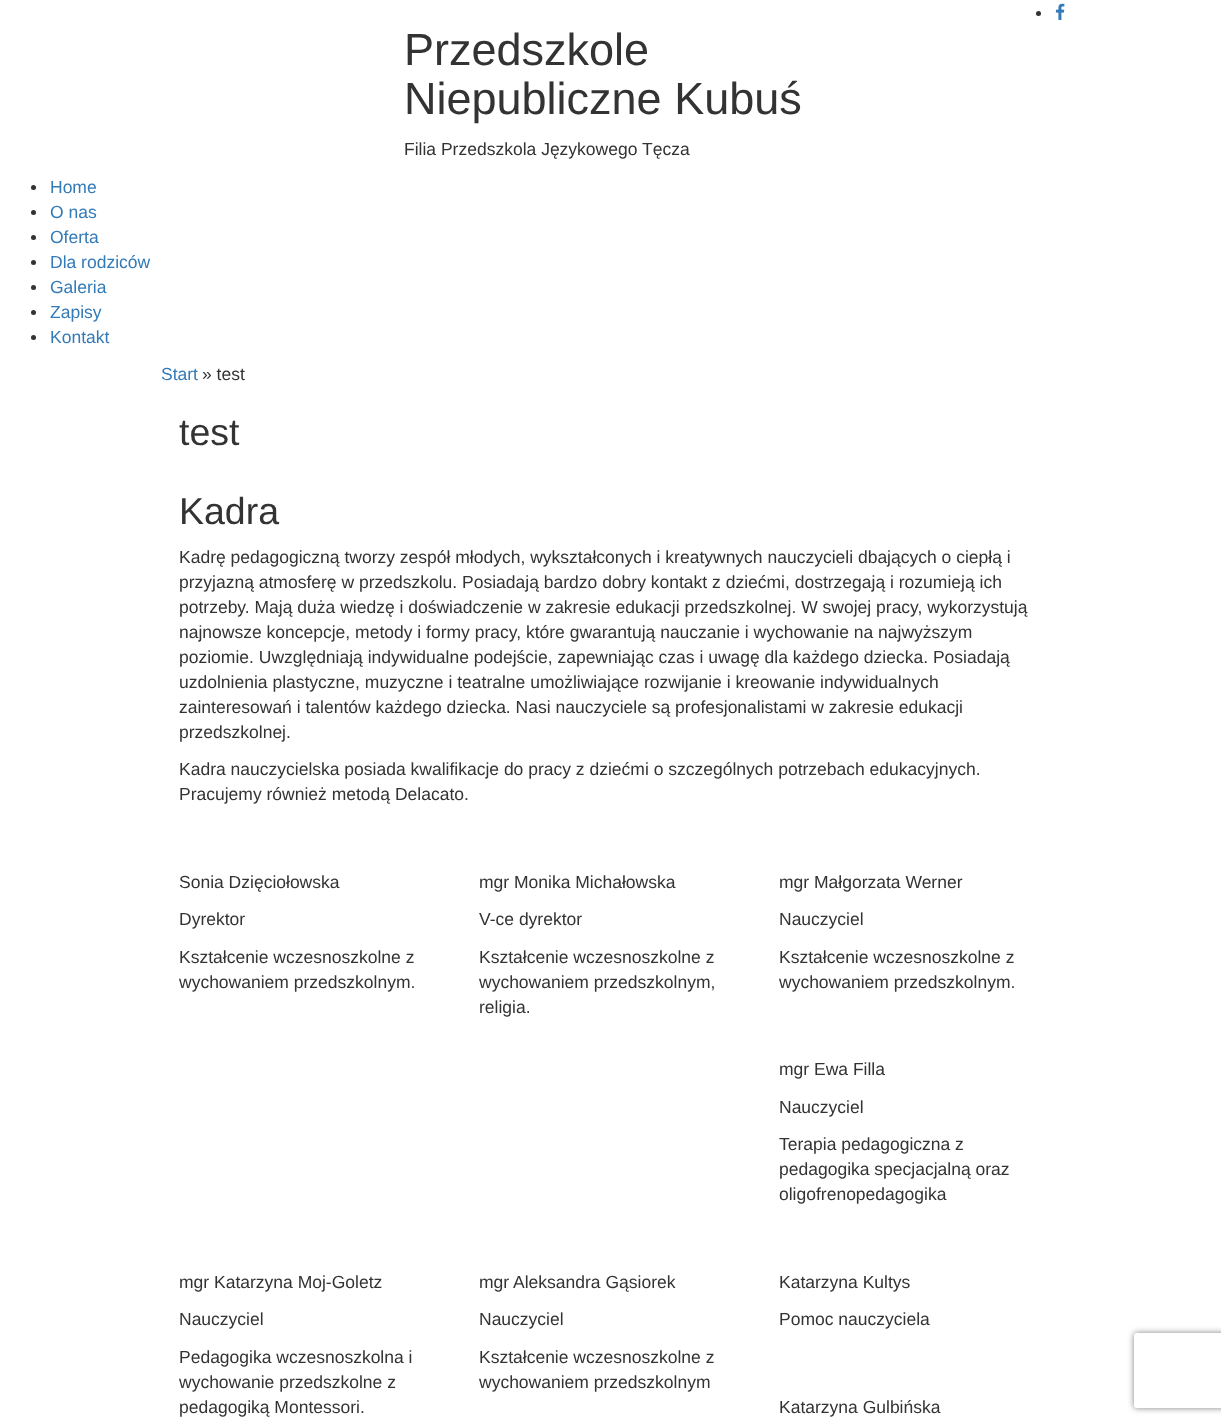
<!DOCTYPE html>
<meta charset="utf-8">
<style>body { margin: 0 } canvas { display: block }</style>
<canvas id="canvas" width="1221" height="1425"></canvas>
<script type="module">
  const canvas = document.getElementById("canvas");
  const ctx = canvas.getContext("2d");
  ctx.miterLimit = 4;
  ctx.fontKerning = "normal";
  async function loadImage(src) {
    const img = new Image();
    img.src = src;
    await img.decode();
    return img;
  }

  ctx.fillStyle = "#ffffff";
  ctx.fillRect(0, 0, 1221, 1425);
  ctx.fillStyle = "#333333";
  ctx.beginPath();
  ctx.arc(1038.5, 13.5, 2.5, 0, Math.PI * 2);
  ctx.fill();
  ctx.drawImage(await loadImage("img1.png"), 1055, 3, 10, 17);
  ctx.font = "45px Liberation Sans";
  ctx.fillText("Przedszkole", 404, 65);
  ctx.fillText("Niepubliczne Kubuś", 404, 114);
  ctx.font = "17.5px Liberation Sans";
  ctx.fillText("Filia Przedszkola Językowego Tęcza", 404, 155);
  ctx.beginPath();
  ctx.arc(33.5, 187.5, 2.5, 0, Math.PI * 2);
  ctx.fill();
  ctx.fillStyle = "#337ab7";
  ctx.fillText("Home", 50, 193);
  ctx.fillStyle = "#333333";
  ctx.beginPath();
  ctx.arc(33.5, 212.5, 2.5, 0, Math.PI * 2);
  ctx.fill();
  ctx.fillStyle = "#337ab7";
  ctx.fillText("O nas", 50, 218);
  ctx.fillStyle = "#333333";
  ctx.beginPath();
  ctx.arc(33.5, 237.5, 2.5, 0, Math.PI * 2);
  ctx.fill();
  ctx.fillStyle = "#337ab7";
  ctx.fillText("Oferta", 50, 243);
  ctx.fillStyle = "#333333";
  ctx.beginPath();
  ctx.arc(33.5, 262.5, 2.5, 0, Math.PI * 2);
  ctx.fill();
  ctx.fillStyle = "#337ab7";
  ctx.fillText("Dla rodziców", 50, 268);
  ctx.fillStyle = "#333333";
  ctx.beginPath();
  ctx.arc(33.5, 287.5, 2.5, 0, Math.PI * 2);
  ctx.fill();
  ctx.fillStyle = "#337ab7";
  ctx.fillText("Galeria", 50, 293);
  ctx.fillStyle = "#333333";
  ctx.beginPath();
  ctx.arc(33.5, 312.5, 2.5, 0, Math.PI * 2);
  ctx.fill();
  ctx.fillStyle = "#337ab7";
  ctx.fillText("Zapisy", 50, 318);
  ctx.fillStyle = "#333333";
  ctx.beginPath();
  ctx.arc(33.5, 337.5, 2.5, 0, Math.PI * 2);
  ctx.fill();
  ctx.fillStyle = "#337ab7";
  ctx.fillText("Kontakt", 50, 343);
  ctx.fillText("Start", 161, 380);
  ctx.fillStyle = "#333333";
  ctx.fillText("» test", 202, 380);
  ctx.font = "37.5px Liberation Sans";
  ctx.fillText("test", 179, 445);
  ctx.fillText("Kadra", 179, 524);
  ctx.font = "17.5px Liberation Sans";
  ctx.fillText("Kadrę pedagogiczną tworzy zespół młodych, wykształconych i kreatywnych nauczycieli dbających o ciepłą i", 179, 563);
  ctx.fillText("przyjazną atmosferę w przedszkolu. Posiadają bardzo dobry kontakt z dziećmi, dostrzegają i rozumieją ich", 179, 588);
  ctx.fillText("potrzeby. Mają duża wiedzę i doświadczenie w zakresie edukacji przedszkolnej. W swojej pracy, wykorzystują", 179, 613);
  ctx.fillText("najnowsze koncepcje, metody i formy pracy, które gwarantują nauczanie i wychowanie na najwyższym", 179, 638);
  ctx.fillText("poziomie. Uwzględniają indywidualne podejście, zapewniając czas i uwagę dla każdego dziecka. Posiadają", 179, 663);
  ctx.fillText("uzdolnienia plastyczne, muzyczne i teatralne umożliwiające rozwijanie i kreowanie indywidualnych", 179, 688);
  ctx.fillText("zainteresowań i talentów każdego dziecka. Nasi nauczyciele są profesjonalistami w zakresie edukacji", 179, 713);
  ctx.fillText("przedszkolnej.", 179, 738);
  ctx.fillText("Kadra nauczycielska posiada kwalifikacje do pracy z dziećmi o szczególnych potrzebach edukacyjnych.", 179, 775);
  ctx.fillText("Pracujemy również metodą Delacato.", 179, 800);
  ctx.fillText("Sonia Dzięciołowska", 179, 888);
  ctx.fillText("Dyrektor", 179, 925);
  ctx.fillText("Kształcenie wczesnoszkolne z", 179, 963);
  ctx.fillText("wychowaniem przedszkolnym.", 179, 988);
  ctx.fillText("mgr Monika Michałowska", 479, 888);
  ctx.fillText("V-ce dyrektor", 479, 925);
  ctx.fillText("Kształcenie wczesnoszkolne z", 479, 963);
  ctx.fillText("wychowaniem przedszkolnym,", 479, 988);
  ctx.fillText("religia.", 479, 1013);
  ctx.fillText("mgr Małgorzata Werner", 779, 888);
  ctx.fillText("Nauczyciel", 779, 925);
  ctx.fillText("Kształcenie wczesnoszkolne z", 779, 963);
  ctx.fillText("wychowaniem przedszkolnym.", 779, 988);
  ctx.fillText("mgr Ewa Filla", 779, 1075);
  ctx.fillText("Nauczyciel", 779, 1113);
  ctx.fillText("Terapia pedagogiczna z", 779, 1150);
  ctx.fillText("pedagogika specjacjalną oraz", 779, 1175);
  ctx.fillText("oligofrenopedagogika", 779, 1200);
  ctx.fillText("mgr Katarzyna Moj-Goletz", 179, 1288);
  ctx.fillText("Nauczyciel", 179, 1325);
  ctx.fillText("Pedagogika wczesnoszkolna i", 179, 1363);
  ctx.fillText("wychowanie przedszkolne z", 179, 1388);
  ctx.fillText("pedagogiką Montessori.", 179, 1413);
  ctx.fillText("mgr Aleksandra Gąsiorek", 479, 1288);
  ctx.fillText("Nauczyciel", 479, 1325);
  ctx.fillText("Kształcenie wczesnoszkolne z", 479, 1363);
  ctx.fillText("wychowaniem przedszkolnym", 479, 1388);
  ctx.fillText("Katarzyna Kultys", 779, 1288);
  ctx.fillText("Pomoc nauczyciela", 779, 1325);
  ctx.fillText("Katarzyna Gulbińska", 779, 1413);
  ctx.save();
  ctx.beginPath();
  ctx.moveTo(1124, 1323);
  ctx.lineTo(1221, 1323);
  ctx.lineTo(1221, 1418);
  ctx.lineTo(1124, 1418);
  ctx.closePath();
  ctx.moveTo(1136.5, 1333);
  ctx.lineTo(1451.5, 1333);
  ctx.bezierCurveTo(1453, 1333, 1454, 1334, 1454, 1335.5);
  ctx.lineTo(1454, 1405.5);
  ctx.bezierCurveTo(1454, 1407, 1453, 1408, 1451.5, 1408);
  ctx.lineTo(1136.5, 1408);
  ctx.bezierCurveTo(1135, 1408, 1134, 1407, 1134, 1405.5);
  ctx.lineTo(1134, 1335.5);
  ctx.bezierCurveTo(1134, 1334, 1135, 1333, 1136.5, 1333);
  ctx.closePath();
  ctx.clip("evenodd");
  ctx.fillStyle = "#808080";
  ctx.filter = "blur(3px)";
  ctx.beginPath();
  ctx.roundRect(1134, 1333, 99, 75, 2.5);
  ctx.fill();
  ctx.filter = "none";
  ctx.restore();
</script>
